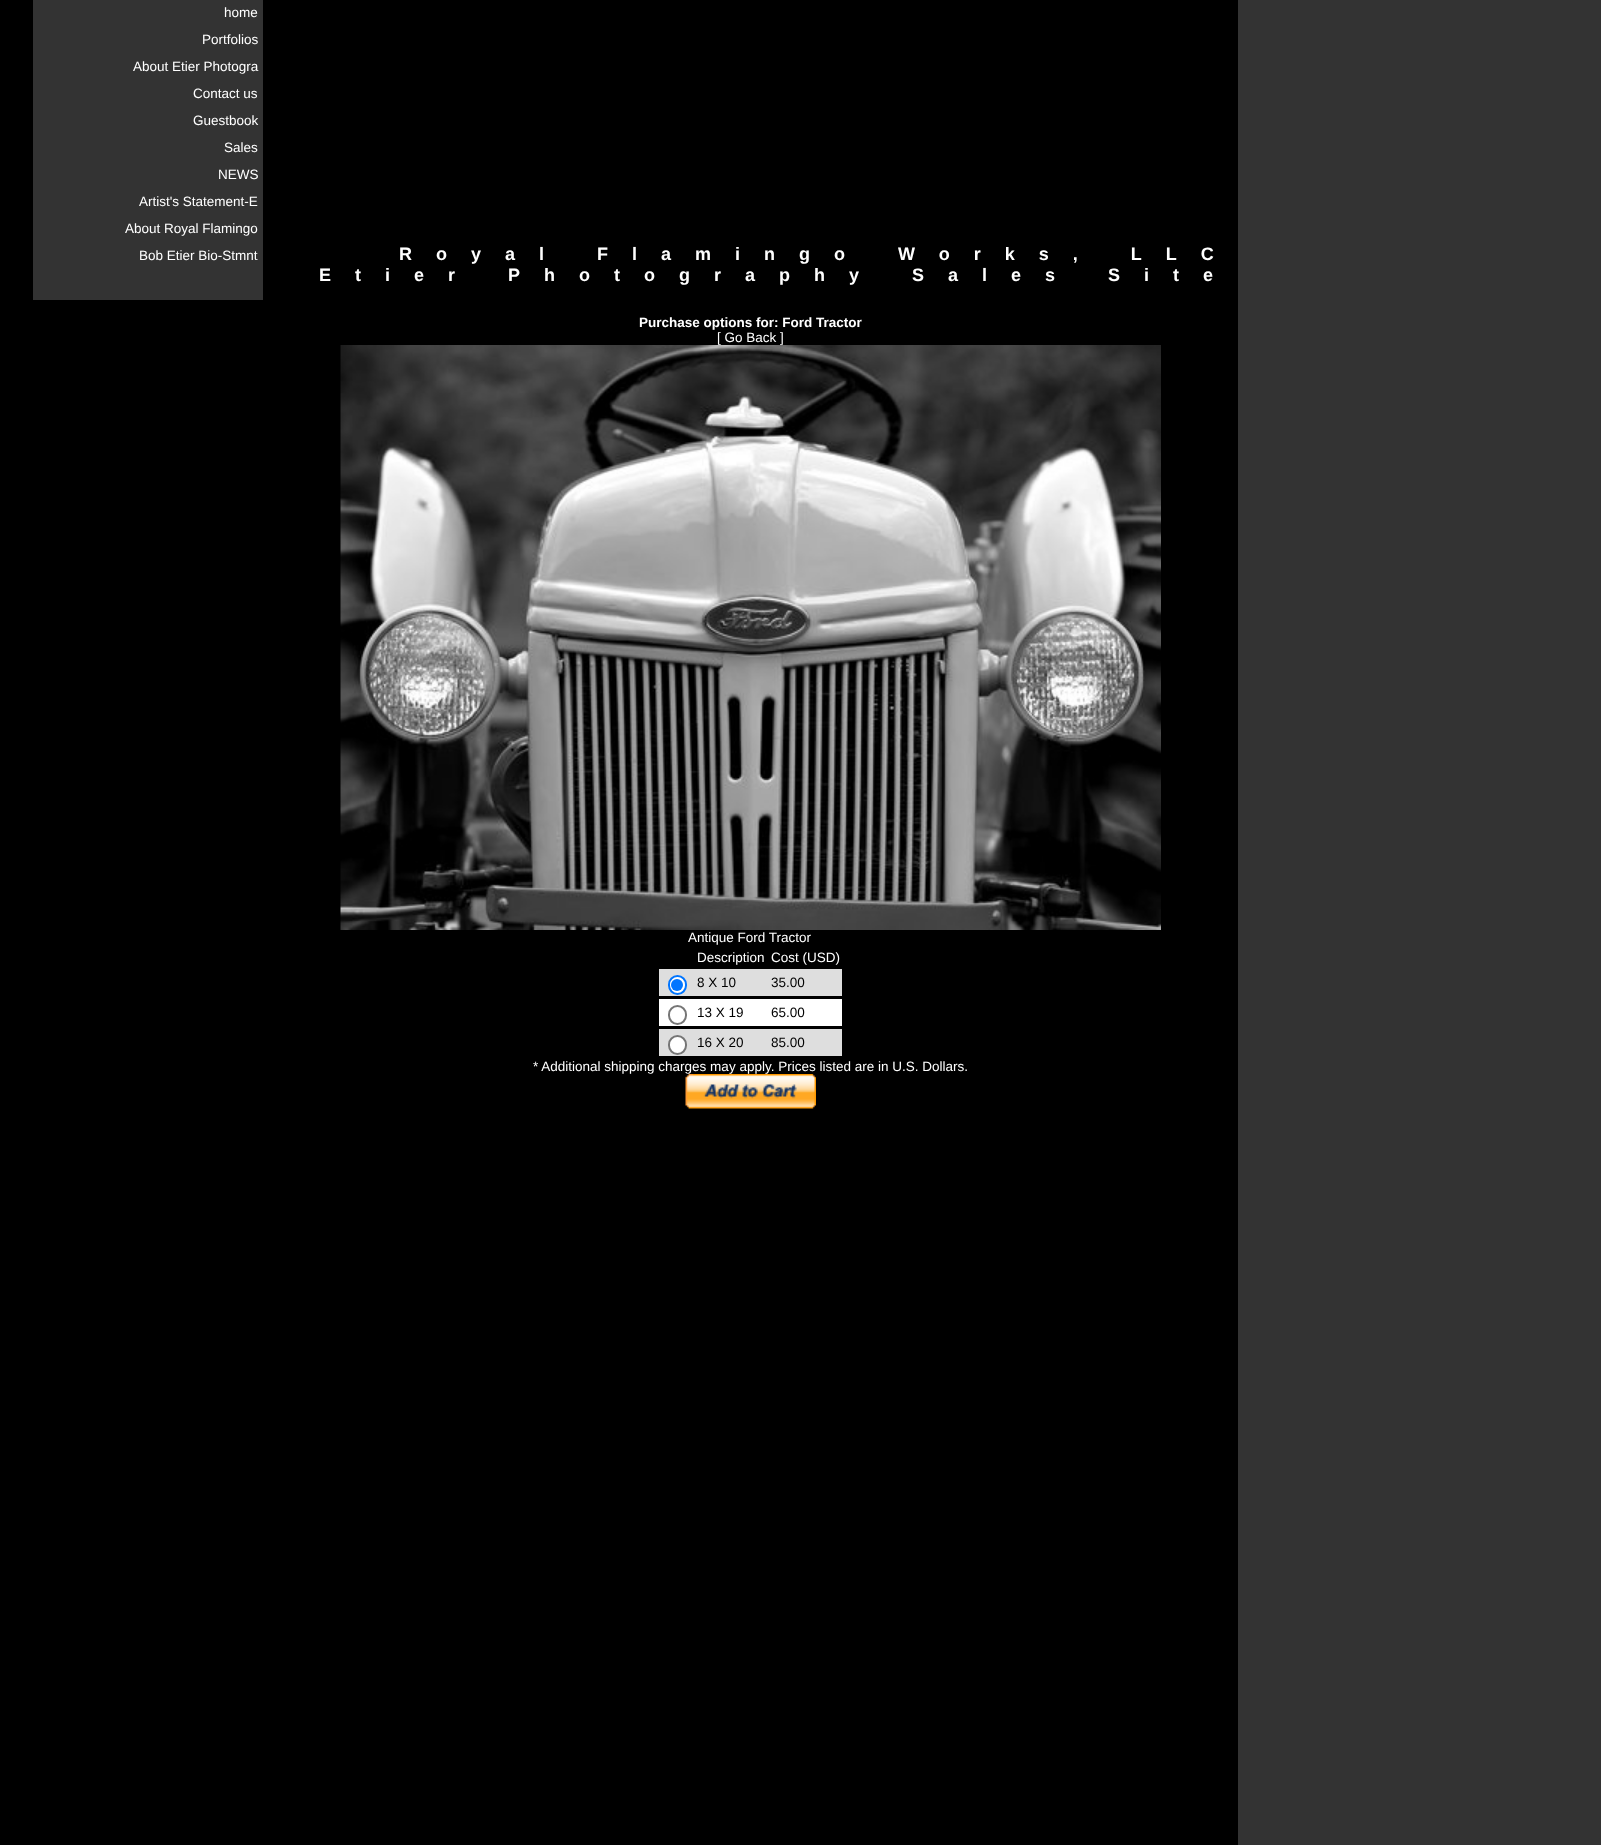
<!DOCTYPE html>
<meta charset="utf-8">
<style>body { margin: 0 } canvas { display: block }</style>
<canvas id="canvas" width="1601" height="1845"></canvas>
<script type="module">
  const canvas = document.getElementById("canvas");
  const ctx = canvas.getContext("2d");
  ctx.miterLimit = 4;
  ctx.fontKerning = "normal";
  async function loadImage(src) {
    const img = new Image();
    img.src = src;
    await img.decode();
    return img;
  }

  ctx.fillStyle = "#333333";
  ctx.fillRect(0, 0, 1601, 1845);
  ctx.fillStyle = "#000000";
  ctx.fillRect(0, 0, 1238, 1845);
  ctx.fillStyle = "#333333";
  ctx.fillRect(33, 0, 230, 300);
  ctx.font = "13.5px Liberation Sans";
  ctx.fillStyle = "#ffffff";
  ctx.fillText("home", 224, 17);
  ctx.fillText("Portfolios", 202, 44);
  ctx.fillText("About Etier Photogra", 133, 71);
  ctx.fillText("Contact us", 193, 98);
  ctx.fillText("Guestbook", 193, 125);
  ctx.fillText("Sales", 224, 152);
  ctx.fillText("NEWS", 218, 179);
  ctx.fillText("Artist's Statement-E", 139, 206);
  ctx.fillText("About Royal Flamingo", 125, 233);
  ctx.fillText("Bob Etier Bio-Stmnt", 139, 260);
  ctx.letterSpacing = "24px";
  ctx.font = "bold 18px Liberation Sans";
  ctx.fillText("Royal Flamingo Works, LLC", 399, 260);
  ctx.fillText("Etier Photography Sales Site", 319, 281);
  ctx.letterSpacing = "0px";
  ctx.font = "bold 13.5px Liberation Sans";
  ctx.fillText("Purchase options for: Ford Tractor", 639, 327);
  ctx.font = "13.5px Liberation Sans";
  ctx.fillText("[ Go Back ]", 717, 342);
  ctx.drawImage(await loadImage("img1.png"), 340, 345, 821, 585);
  ctx.fillText("Antique Ford Tractor", 688, 942);
  ctx.fillText("Description", 697, 962);
  ctx.fillText("Cost (USD)", 771, 962);
  ctx.fillStyle = "#dedede";
  ctx.fillRect(659, 969, 183, 27);
  ctx.fillStyle = "#ffffff";
  ctx.beginPath();
  ctx.roundRect(669, 976, 17, 18, 8.5);
  ctx.fill();
  ctx.strokeStyle = "#0075ff";
  ctx.lineWidth = 2;
  ctx.stroke();
  ctx.fillStyle = "#0075ff";
  ctx.beginPath();
  ctx.arc(677, 985, 6, 0, Math.PI * 2);
  ctx.fill();
  ctx.fillStyle = "#000000";
  ctx.fillText("8 X 10", 697, 987);
  ctx.fillText("35.00", 771, 987);
  ctx.fillStyle = "#ffffff";
  ctx.fillRect(659, 999, 183, 27);
  ctx.beginPath();
  ctx.roundRect(669, 1006, 17, 18, 8.5);
  ctx.strokeStyle = "#767676";
  ctx.stroke();
  ctx.fillStyle = "#000000";
  ctx.fillText("13 X 19", 697, 1017);
  ctx.fillText("65.00", 771, 1017);
  ctx.fillStyle = "#dedede";
  ctx.fillRect(659, 1029, 183, 27);
  ctx.fillStyle = "#ffffff";
  ctx.beginPath();
  ctx.roundRect(669, 1036, 17, 18, 8.5);
  ctx.fill();
  ctx.stroke();
  ctx.fillStyle = "#000000";
  ctx.fillText("16 X 20", 697, 1047);
  ctx.fillText("85.00", 771, 1047);
  ctx.fillStyle = "#ffffff";
  ctx.fillText("* Additional shipping charges may apply. Prices listed are in U.S. Dollars.", 533, 1071);
  ctx.drawImage(await loadImage("img2.png"), 685, 1074, 131, 35);
</script>
